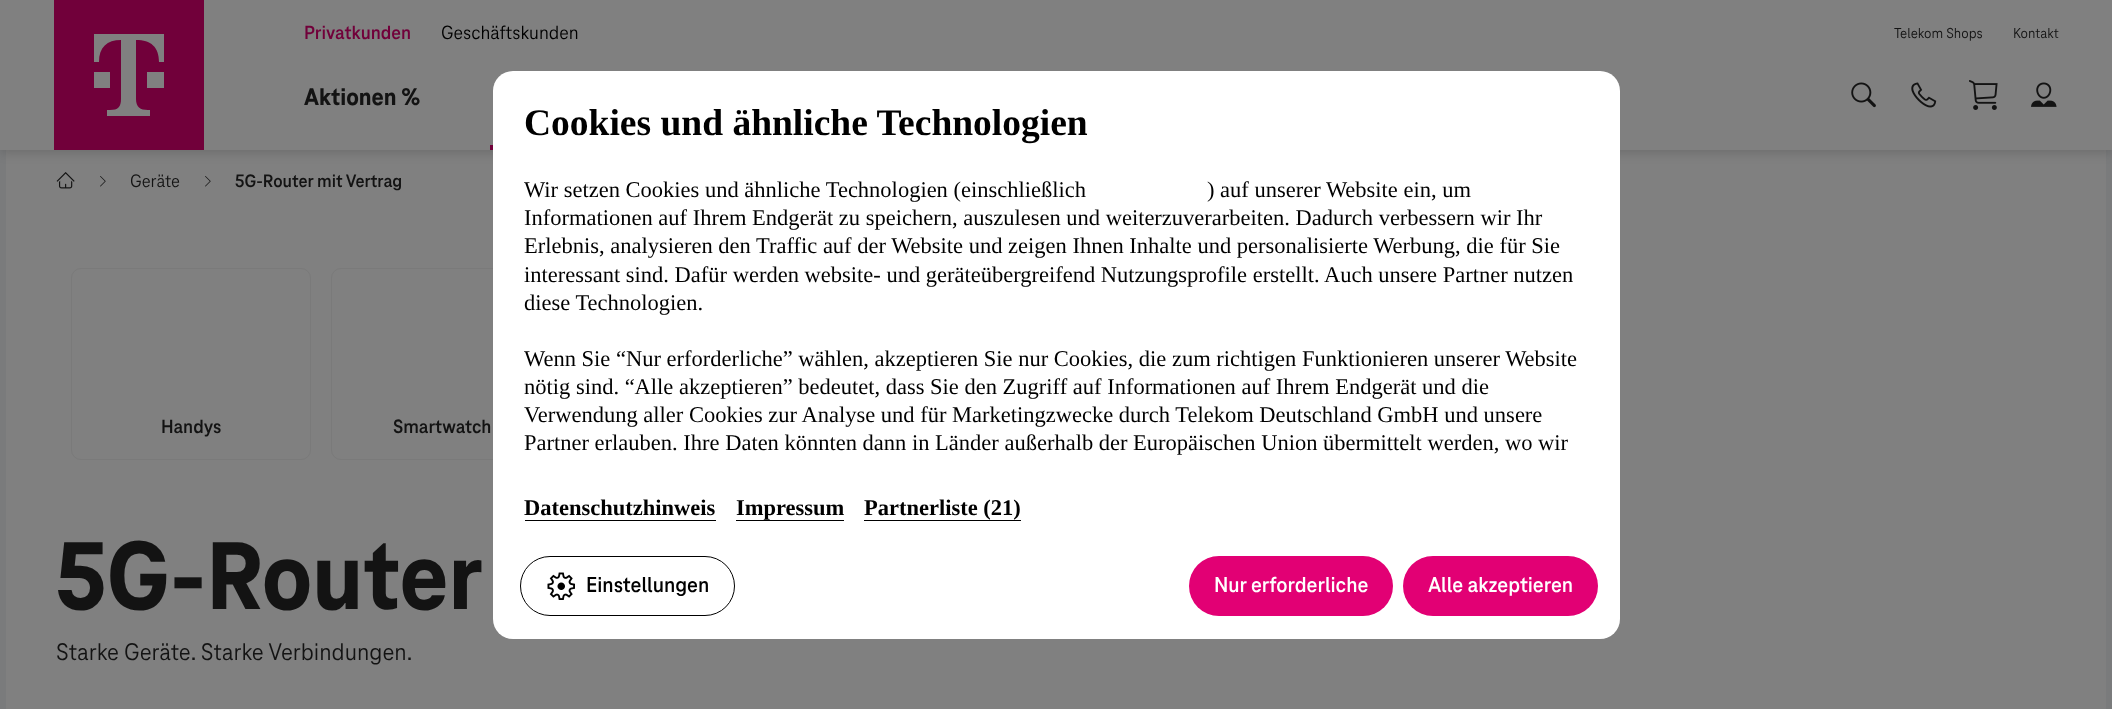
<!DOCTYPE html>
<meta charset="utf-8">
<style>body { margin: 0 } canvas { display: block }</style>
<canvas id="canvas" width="2112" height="709"></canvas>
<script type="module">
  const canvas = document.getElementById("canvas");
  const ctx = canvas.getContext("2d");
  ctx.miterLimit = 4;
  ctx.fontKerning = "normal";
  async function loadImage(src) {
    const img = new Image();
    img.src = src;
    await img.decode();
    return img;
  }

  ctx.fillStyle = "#7a7b7c";
  ctx.fillRect(0, 0, 2112, 709);
  ctx.fillStyle = "#808080";
  ctx.fillRect(6, 150, 2100, 559);
  ctx.fillStyle = "rgba(0, 0, 0, 0.15)";
  ctx.filter = "blur(5.5px)";
  ctx.beginPath();
  ctx.rect(0, 3, 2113, 150);
  ctx.fill();
  ctx.filter = "none";
  ctx.fillStyle = "#808080";
  ctx.fillRect(0, 0, 2112, 150);
  ctx.fillStyle = "#71003a";
  ctx.fillRect(54, 0, 150, 150);
  ctx.fillStyle = "#808080";
  ctx.beginPath();
  ctx.moveTo(110, 88);
  ctx.lineTo(94, 88);
  ctx.lineTo(94, 72);
  ctx.lineTo(110, 72);
  ctx.closePath();
  ctx.moveTo(94, 34);
  ctx.lineTo(94, 62);
  ctx.lineTo(99, 62);
  ctx.bezierCurveTo(99, 47, 107, 40, 121, 40);
  ctx.lineTo(121, 99);
  ctx.bezierCurveTo(121, 107, 118, 110, 110, 110);
  ctx.lineTo(107, 110);
  ctx.lineTo(107, 116);
  ctx.lineTo(150, 116);
  ctx.lineTo(150, 110);
  ctx.lineTo(148, 110);
  ctx.bezierCurveTo(140, 110, 136, 107, 136, 99);
  ctx.lineTo(136, 40);
  ctx.bezierCurveTo(151, 40, 159, 47, 159, 62);
  ctx.lineTo(164, 62);
  ctx.lineTo(164, 34);
  ctx.closePath();
  ctx.moveTo(147, 88);
  ctx.lineTo(164, 88);
  ctx.lineTo(164, 72);
  ctx.lineTo(147, 72);
  ctx.closePath();
  ctx.fill();
  ctx.font = "bold 20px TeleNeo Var";
  ctx.fillStyle = "#71003a";
  ctx.fillText("Privatkunden", 304, 39);
  ctx.font = "20px TeleNeo Var";
  ctx.fillStyle = "#000000";
  ctx.fillText("Geschäftskunden", 441, 39);
  ctx.font = "15px TeleNeo Var";
  ctx.fillStyle = "#131313";
  ctx.fillText("Telekom Shops", 1894, 38);
  ctx.fillText("Kontakt", 2013, 38);
  ctx.font = "800 25px TeleNeo Var";
  ctx.fillText("Aktionen %", 304, 105);
  ctx.fillStyle = "#71003a";
  ctx.fillRect(490, 145, 3, 5);
  ctx.drawImage(await loadImage("img1.png"), 1851, 82, 25, 26);
  ctx.drawImage(await loadImage("img2.png"), 1911, 82, 26, 26);
  ctx.drawImage(await loadImage("img3.png"), 1969, 80, 29, 30);
  ctx.drawImage(await loadImage("img4.png"), 2031, 82, 26, 25);
  ctx.drawImage(await loadImage("img5.png"), 56, 172, 19, 17);
  ctx.drawImage(await loadImage("img6.png"), 100, 176, 6, 11);
  ctx.font = "18.75px TeleNeo Var";
  ctx.fillStyle = "#131313";
  ctx.fillText("Geräte", 130, 187);
  ctx.drawImage(await loadImage("img6.png"), 205, 176, 6, 11);
  ctx.font = "bold 18.75px TeleNeo Var";
  ctx.fillText("5G-Router mit Vertrag", 235, 187);
  ctx.beginPath();
  ctx.roundRect(71.5, 268.5, 239, 191, 9.5);
  ctx.strokeStyle = "#7a7a7a";
  ctx.stroke();
  ctx.font = "bold 20px TeleNeo Var";
  ctx.fillText("Handys", 161, 433);
  ctx.beginPath();
  ctx.roundRect(331.5, 268.5, 239, 191, 9.5);
  ctx.stroke();
  ctx.fillText("Smartwatch", 393, 433);
  ctx.font = "800 100px TeleNeo Var";
  ctx.fillText("5G-Router", 56, 609);
  ctx.font = "25px TeleNeo Var";
  ctx.fillText("Starke Geräte. Starke Verbindungen.", 56, 660);
  ctx.fillStyle = "#ffffff";
  ctx.beginPath();
  ctx.roundRect(493, 71, 1127, 568, 20);
  ctx.fill();
  ctx.font = "bold 37.5px Liberation Serif";
  ctx.fillStyle = "#000000";
  ctx.fillText("Cookies und ähnliche Technologien", 524, 135);
  ctx.font = "22.5px Liberation Serif";
  ctx.fillText("Wir setzen Cookies und ähnliche Technologien (einschließlich", 524, 197);
  ctx.fillText(") auf unserer Website ein, um", 1207, 197);
  ctx.fillText("Informationen auf Ihrem Endgerät zu speichern, auszulesen und weiterzuverarbeiten. Dadurch verbessern wir Ihr", 524, 225);
  ctx.fillText("Erlebnis, analysieren den Traffic auf der Website und zeigen Ihnen Inhalte und personalisierte Werbung, die für Sie", 524, 253);
  ctx.fillText("interessant sind. Dafür werden website- und geräteübergreifend Nutzungsprofile erstellt. Auch unsere Partner nutzen", 524, 282);
  ctx.fillText("diese Technologien.", 524, 310);
  ctx.fillText("Wenn Sie “Nur erforderliche” wählen, akzeptieren Sie nur Cookies, die zum richtigen Funktionieren unserer Website", 524, 366);
  ctx.fillText("nötig sind. “Alle akzeptieren” bedeutet, dass Sie den Zugriff auf Informationen auf Ihrem Endgerät und die", 524, 394);
  ctx.fillText("Verwendung aller Cookies zur Analyse und für Marketingzwecke durch Telekom Deutschland GmbH und unsere", 524, 422);
  ctx.fillText("Partner erlauben. Ihre Daten könnten dann in Länder außerhalb der Europäischen Union übermittelt werden, wo wir", 524, 450);
  ctx.font = "bold 22.5px Liberation Serif";
  ctx.fillText("Datenschutzhinweis", 524, 515);
  ctx.fillRect(525, 520, 191, 1);
  ctx.fillText("Impressum", 736, 515);
  ctx.fillRect(736, 520, 108, 1);
  ctx.fillText("Partnerliste (21)", 864, 515);
  ctx.fillRect(864, 520, 157, 1);
  ctx.beginPath();
  ctx.roundRect(520.5, 556.5, 214, 59, 29.5);
  ctx.strokeStyle = "#000000";
  ctx.stroke();
  ctx.drawImage(await loadImage("img7.png"), 547, 572, 28, 28);
  ctx.font = "bold 22.5px 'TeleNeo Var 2'";
  ctx.fillText("Einstellungen", 586, 592);
  ctx.fillStyle = "#e20074";
  ctx.beginPath();
  ctx.roundRect(1189, 556, 204, 60, 30);
  ctx.fill();
  ctx.fillStyle = "#ffffff";
  ctx.fillText("Nur erforderliche", 1214, 592);
  ctx.fillStyle = "#e20074";
  ctx.beginPath();
  ctx.roundRect(1403, 556, 195, 60, 30);
  ctx.fill();
  ctx.fillStyle = "#ffffff";
  ctx.fillText("Alle akzeptieren", 1428, 592);
</script>
